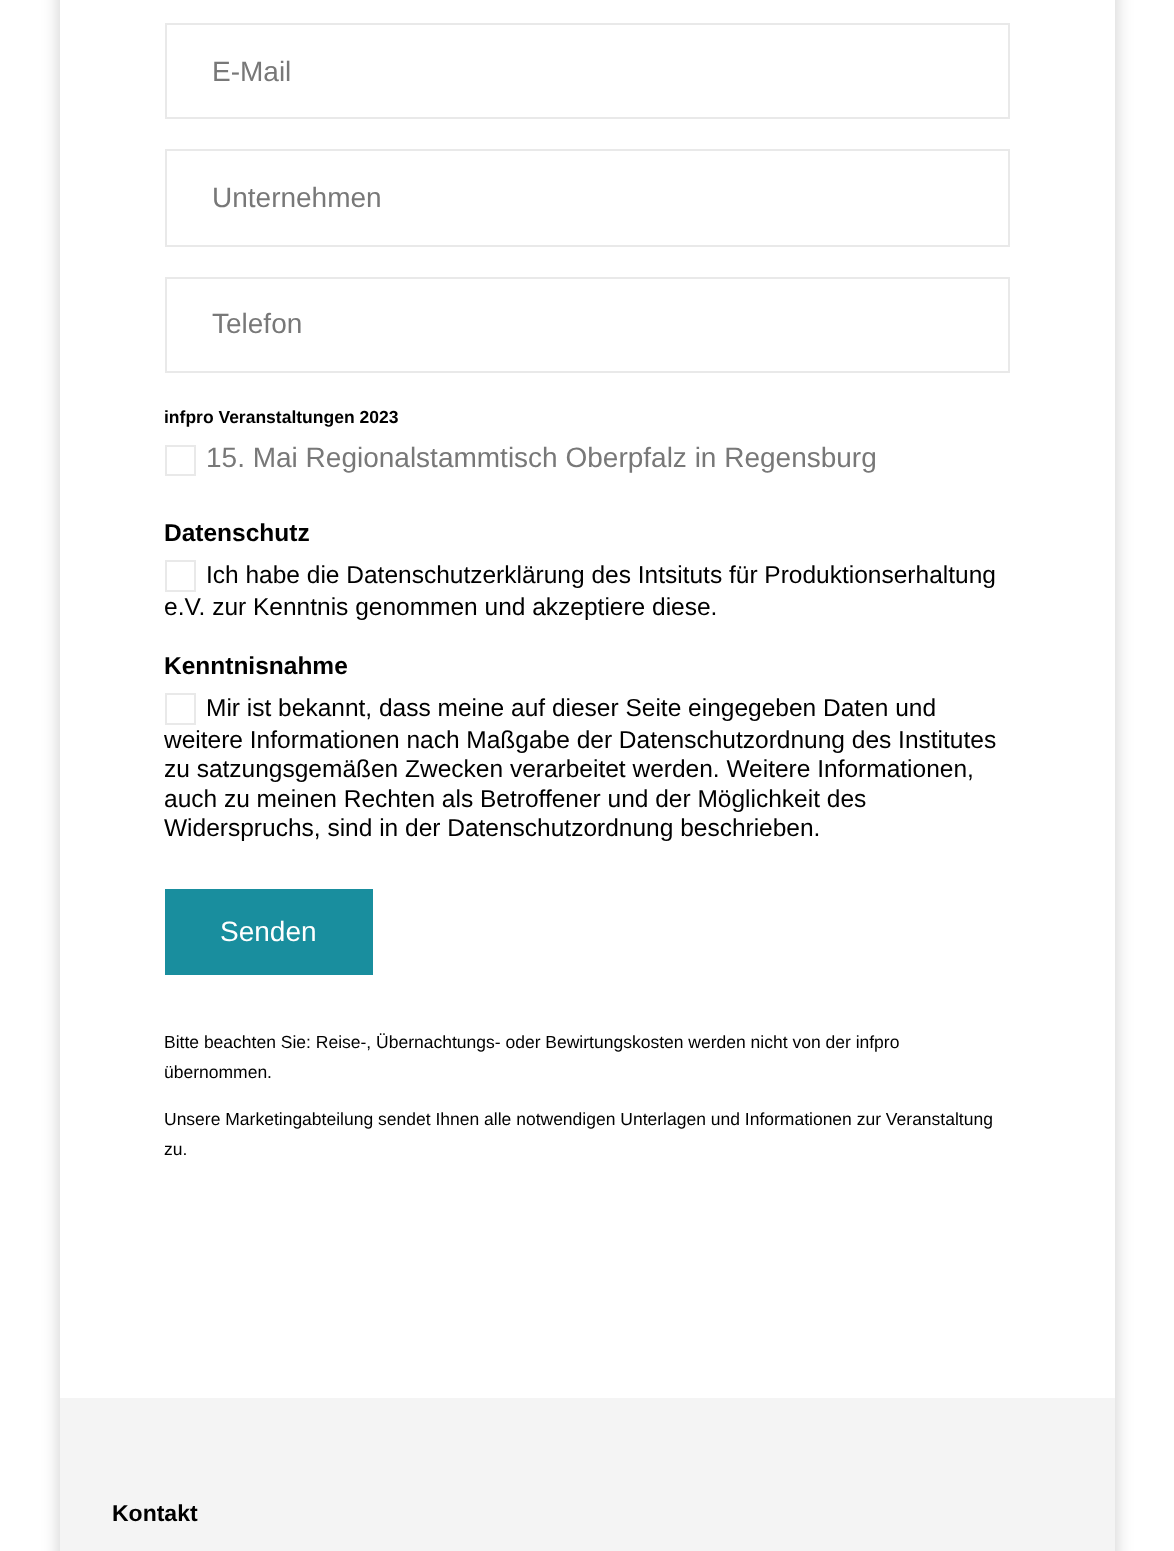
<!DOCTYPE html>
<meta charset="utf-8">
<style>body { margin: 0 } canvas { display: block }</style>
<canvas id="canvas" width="1174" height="1551"></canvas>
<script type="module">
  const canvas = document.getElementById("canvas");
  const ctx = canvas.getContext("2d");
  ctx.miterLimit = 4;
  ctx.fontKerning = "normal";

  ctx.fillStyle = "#ffffff";
  ctx.fillRect(0, 0, 1174, 1551);
  ctx.fillStyle = "rgba(0, 0, 0, 0.2)";
  ctx.filter = "blur(9px)";
  ctx.beginPath();
  ctx.rect(60, -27, 1055, 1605);
  ctx.fill();
  ctx.filter = "none";
  ctx.fillStyle = "#ffffff";
  ctx.fillRect(60, 0, 1055, 1398);
  ctx.strokeStyle = "#e9e9e9";
  ctx.lineWidth = 2;
  ctx.strokeRect(166, 24, 843, 94);
  ctx.font = "28px Liberation Sans";
  ctx.fillStyle = "#787878";
  ctx.fillText("E-Mail", 212, 81);
  ctx.strokeRect(166, 150, 843, 96);
  ctx.fillText("Unternehmen", 212, 207);
  ctx.strokeRect(166, 278, 843, 94);
  ctx.fillText("Telefon", 212, 333);
  ctx.font = "bold 17.5px Liberation Sans";
  ctx.fillStyle = "#000000";
  ctx.fillText("infpro Veranstaltungen 2023", 164, 423);
  ctx.strokeRect(166, 446, 29, 29);
  ctx.font = "28px Liberation Sans";
  ctx.fillStyle = "#787878";
  ctx.fillText("15. Mai Regionalstammtisch Oberpfalz in Regensburg", 206, 467);
  ctx.font = "bold 24.5px Liberation Sans";
  ctx.fillStyle = "#000000";
  ctx.fillText("Datenschutz", 164, 541);
  ctx.strokeRect(166, 561, 29, 30);
  ctx.font = "24.5px Liberation Sans";
  ctx.fillText("Ich habe die Datenschutzerklärung des Intsituts für Produktionserhaltung", 206, 583);
  ctx.fillText("e.V. zur Kenntnis genommen und akzeptiere diese.", 164, 615);
  ctx.font = "bold 24.5px Liberation Sans";
  ctx.fillText("Kenntnisnahme", 164, 674);
  ctx.strokeRect(166, 694, 29, 30);
  ctx.font = "24.5px Liberation Sans";
  ctx.fillText("Mir ist bekannt, dass meine auf dieser Seite eingegeben Daten und", 206, 716);
  ctx.fillText("weitere Informationen nach Maßgabe der Datenschutzordnung des Institutes", 164, 748);
  ctx.fillText("zu satzungsgemäßen Zwecken verarbeitet werden. Weitere Informationen,", 164, 777);
  ctx.fillText("auch zu meinen Rechten als Betroffener und der Möglichkeit des", 164, 807);
  ctx.fillText("Widerspruchs, sind in der Datenschutzordnung beschrieben.", 164, 836);
  ctx.fillStyle = "#198e9e";
  ctx.fillRect(165, 889, 208, 86);
  ctx.font = "28px Liberation Sans";
  ctx.fillStyle = "#ffffff";
  ctx.fillText("Senden", 220, 941);
  ctx.font = "17.5px Liberation Sans";
  ctx.fillStyle = "#000000";
  ctx.fillText("Bitte beachten Sie: Reise-, Übernachtungs- oder Bewirtungskosten werden nicht von der infpro", 164, 1048);
  ctx.fillText("übernommen.", 164, 1078);
  ctx.fillText("Unsere Marketingabteilung sendet Ihnen alle notwendigen Unterlagen und Informationen zur Veranstaltung", 164, 1125);
  ctx.fillText("zu.", 164, 1155);
  ctx.fillStyle = "#f4f4f4";
  ctx.fillRect(60, 1398, 1055, 153);
  ctx.font = "bold 23px Liberation Sans";
  ctx.fillStyle = "#000000";
  ctx.fillText("Kontakt", 112, 1521);
</script>
